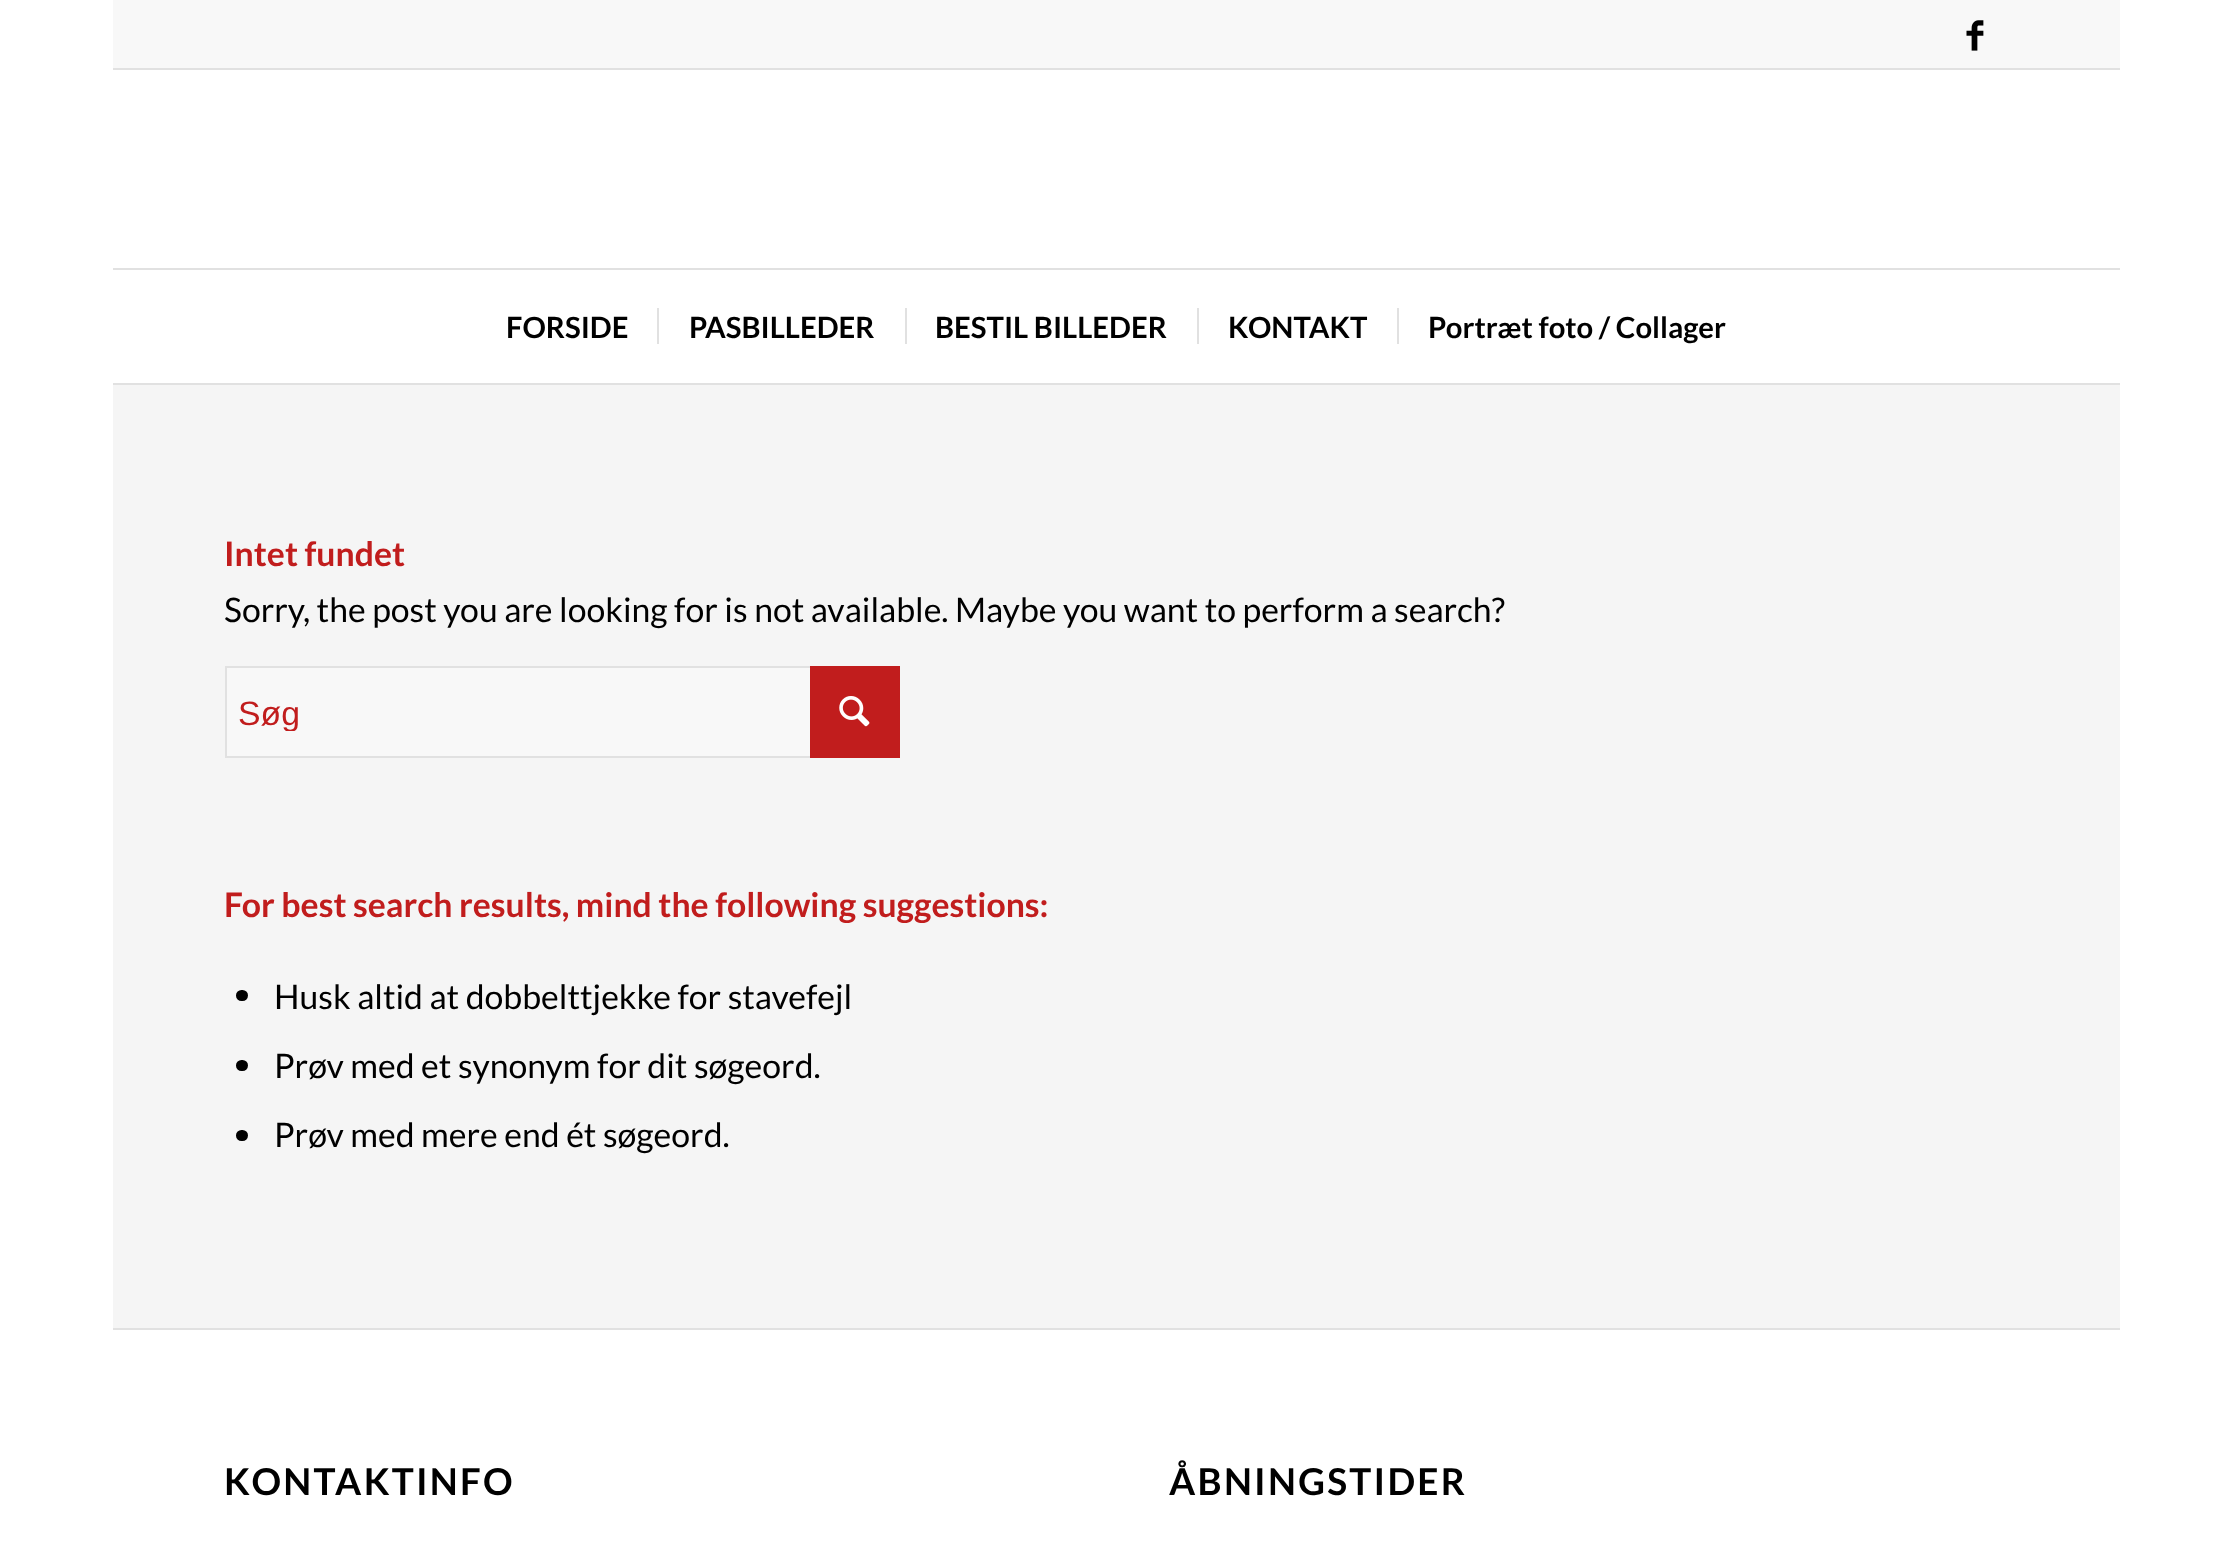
<!DOCTYPE html>
<meta charset="utf-8">
<style>body { margin: 0 } canvas { display: block }</style>
<canvas id="canvas" width="2232" height="1546"></canvas>
<script type="module">
  const canvas = document.getElementById("canvas");
  const ctx = canvas.getContext("2d");
  ctx.miterLimit = 4;
  ctx.fontKerning = "normal";
  async function loadImage(src) {
    const img = new Image();
    img.src = src;
    await img.decode();
    return img;
  }

  ctx.fillStyle = "#ffffff";
  ctx.fillRect(0, 0, 2232, 1546);
  ctx.fillStyle = "#f8f8f8";
  ctx.fillRect(113, 0, 2007, 68);
  ctx.fillStyle = "#e1e1e1";
  ctx.fillRect(113, 68, 2007, 2);
  ctx.drawImage(await loadImage("img1.png"), 1966, 20, 18, 31);
  ctx.fillRect(113, 383, 2007, 2);
  ctx.fillRect(113, 268, 2007, 2);
  ctx.font = "bold 29.25px Lato";
  ctx.fillStyle = "#000000";
  ctx.fillText("FORSIDE", 506, 338);
  ctx.fillText("PASBILLEDER", 689, 338);
  ctx.fillStyle = "#e1e1e1";
  ctx.fillRect(657, 308, 2, 36);
  ctx.fillStyle = "#000000";
  ctx.fillText("BESTIL BILLEDER", 935, 338);
  ctx.fillStyle = "#e1e1e1";
  ctx.fillRect(905, 308, 2, 36);
  ctx.fillStyle = "#000000";
  ctx.fillText("KONTAKT", 1228, 338);
  ctx.fillStyle = "#e1e1e1";
  ctx.fillRect(1197, 308, 2, 36);
  ctx.fillStyle = "#000000";
  ctx.fillText("Portræt foto / Collager", 1428, 338);
  ctx.fillStyle = "#e1e1e1";
  ctx.fillRect(1397, 308, 2, 36);
  ctx.fillStyle = "#f5f5f5";
  ctx.fillRect(113, 385, 2007, 943);
  ctx.font = "bold 33.75px Lato";
  ctx.fillStyle = "#c11d1d";
  ctx.fillText("Intet fundet", 224, 566);
  ctx.font = "33.75px Lato";
  ctx.fillStyle = "#000000";
  ctx.fillText("Sorry, the post you are looking for is not available. Maybe you want to perform a search?", 224, 622);
  ctx.fillStyle = "#f8f8f8";
  ctx.fillRect(227, 668, 583, 88);
  ctx.strokeStyle = "#e1e1e1";
  ctx.lineWidth = 2;
  ctx.strokeRect(226, 667, 673, 90);
  ctx.save();
  ctx.beginPath();
  ctx.rect(239, 693, 553, 38);
  ctx.clip();
  ctx.font = "33.75px Liberation Sans";
  ctx.fillStyle = "#c11d1d";
  ctx.fillText("Søg", 238, 725);
  ctx.restore();
  ctx.fillStyle = "#c11d1d";
  ctx.fillRect(810, 666, 90, 92);
  ctx.drawImage(await loadImage("img2.png"), 839, 696, 31, 31);
  ctx.font = "bold 33.75px Lato";
  ctx.fillText("For best search results, mind the following suggestions:", 224, 917);
  ctx.fillStyle = "#000000";
  ctx.beginPath();
  ctx.roundRect(236, 990, 12, 11, 5.5);
  ctx.fill();
  ctx.font = "33.75px Lato";
  ctx.fillText("Husk altid at dobbelttjekke for stavefejl", 274, 1009);
  ctx.beginPath();
  ctx.roundRect(236, 1060, 12, 11, 5.5);
  ctx.fill();
  ctx.fillText("Prøv med et synonym for dit søgeord.", 274, 1078);
  ctx.beginPath();
  ctx.roundRect(236, 1130, 12, 11, 5.5);
  ctx.fill();
  ctx.fillText("Prøv med mere end ét søgeord.", 274, 1147);
  ctx.fillStyle = "#e1e1e1";
  ctx.fillRect(113, 1328, 2007, 2);
  ctx.letterSpacing = "2.25px";
  ctx.font = "bold 37px Lato";
  ctx.fillStyle = "#000000";
  ctx.fillText("KONTAKTINFO", 224, 1495);
  ctx.fillText("ÅBNINGSTIDER", 1169, 1495);
</script>
